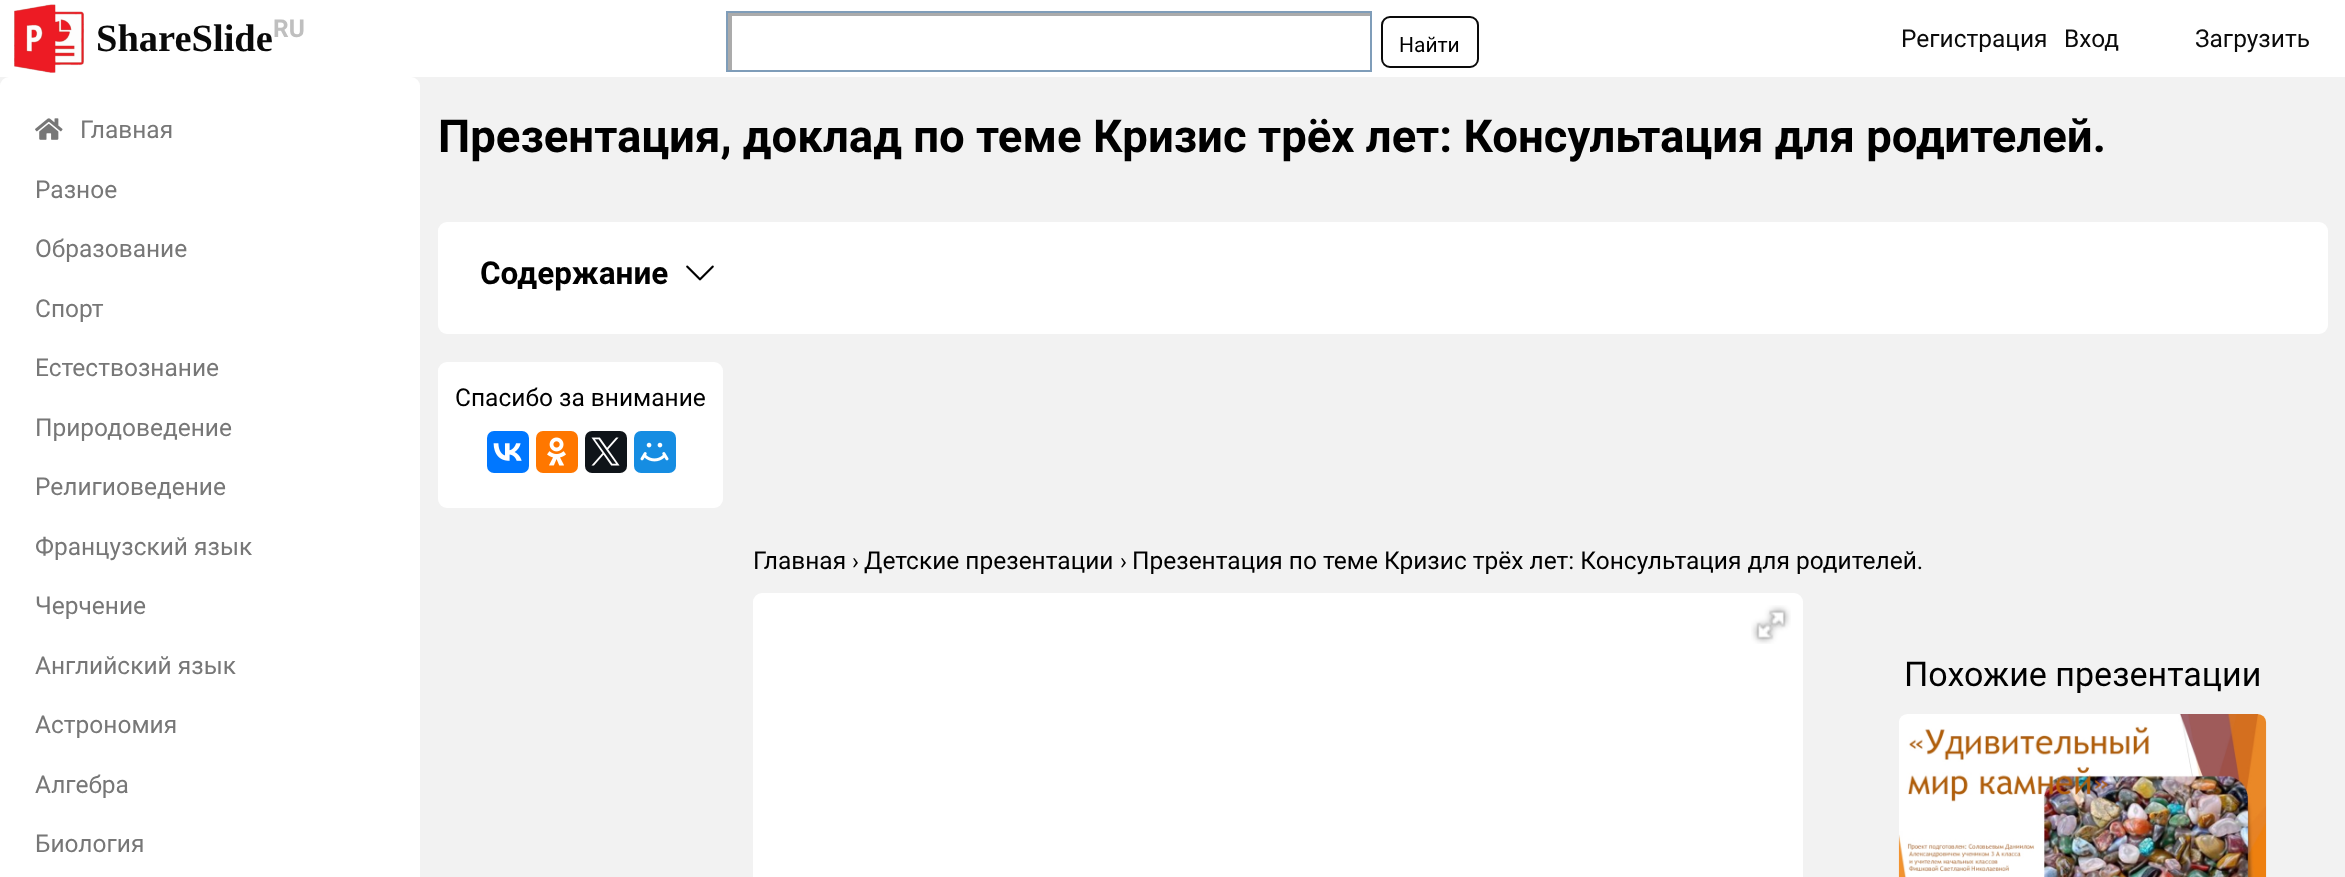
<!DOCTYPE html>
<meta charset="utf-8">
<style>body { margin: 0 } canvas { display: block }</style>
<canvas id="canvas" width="2345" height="877"></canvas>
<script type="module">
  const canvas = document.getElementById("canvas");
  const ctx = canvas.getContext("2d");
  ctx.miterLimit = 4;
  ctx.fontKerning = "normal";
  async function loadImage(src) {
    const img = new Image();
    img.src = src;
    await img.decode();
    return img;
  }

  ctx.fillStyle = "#f2f2f2";
  ctx.fillRect(0, 0, 2345, 877);
  ctx.fillStyle = "#ffffff";
  ctx.fillRect(0, 0, 2345, 77);
  ctx.drawImage(await loadImage("img1.png"), 14, 4, 70, 69);
  ctx.font = "bold 38.5px Liberation Serif";
  ctx.fillStyle = "#0a0a0a";
  ctx.fillText("ShareSlide", 96, 51);
  ctx.font = "bold 24.5px Roboto";
  ctx.fillStyle = "#bfbfbf";
  ctx.fillText("RU", 273, 37);
  ctx.save();
  ctx.beginPath();
  ctx.rect(728, 12, 642, 58);
  ctx.clip();
  ctx.fillStyle = "#ababab";
  ctx.beginPath();
  ctx.moveTo(555, -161);
  ctx.lineTo(1544, -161);
  ctx.lineTo(1544, 243);
  ctx.lineTo(555, 243);
  ctx.closePath();
  ctx.moveTo(732, 16);
  ctx.lineTo(1370, 16);
  ctx.lineTo(1370, 70);
  ctx.lineTo(732, 70);
  ctx.closePath();
  ctx.fill("evenodd");
  ctx.restore();
  ctx.strokeStyle = "#7f9db9";
  ctx.lineWidth = 2;
  ctx.strokeRect(727, 12, 644, 59);
  ctx.beginPath();
  ctx.roundRect(1382, 17, 96, 50, 8);
  ctx.strokeStyle = "#0a0a0a";
  ctx.stroke();
  ctx.font = "21px Roboto";
  ctx.fillStyle = "#000000";
  ctx.fillText("Найти", 1399, 52);
  ctx.font = "24.5px Roboto";
  ctx.fillStyle = "#0a0a0a";
  ctx.fillText("Регистрация", 1901, 47);
  ctx.fillText("Вход", 2064, 47);
  ctx.fillText("Загрузить", 2195, 47);
  ctx.fillStyle = "#ffffff";
  ctx.beginPath();
  ctx.roundRect(0, 77, 420, 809, 9);
  ctx.fill();
  ctx.drawImage(await loadImage("img2.png"), 35, 118, 28, 22);
  ctx.fillStyle = "#777777";
  ctx.fillText("Главная", 80, 138);
  ctx.fillText("Разное", 35, 198);
  ctx.fillText("Образование", 35, 257);
  ctx.fillText("Спорт", 35, 317);
  ctx.fillText("Естествознание", 35, 376);
  ctx.fillText("Природоведение", 35, 436);
  ctx.fillText("Религиоведение", 35, 495);
  ctx.fillText("Французский язык", 35, 555);
  ctx.fillText("Черчение", 35, 614);
  ctx.fillText("Английский язык", 35, 674);
  ctx.fillText("Астрономия", 35, 733);
  ctx.fillText("Алгебра", 35, 793);
  ctx.fillText("Биология", 35, 852);
  ctx.font = "bold 45.5px Roboto";
  ctx.fillStyle = "#000000";
  ctx.fillText("Презентация, доклад по теме Кризис трёх лет: Консультация для родителей.", 438, 152);
  ctx.fillStyle = "#ffffff";
  ctx.beginPath();
  ctx.roundRect(438, 222, 1890, 112, 9);
  ctx.fill();
  ctx.font = "bold 31.5px Roboto";
  ctx.fillStyle = "#000000";
  ctx.fillText("Содержание", 480, 284);
  ctx.drawImage(await loadImage("img3.png"), 686, 265, 28, 16);
  ctx.fillStyle = "#ffffff";
  ctx.beginPath();
  ctx.roundRect(438, 362, 285, 146, 9);
  ctx.fill();
  ctx.font = "24.5px Roboto";
  ctx.fillStyle = "#000000";
  ctx.fillText("Спасибо за внимание", 455, 406);
  ctx.fillStyle = "#0077ff";
  ctx.beginPath();
  ctx.roundRect(487, 431, 42, 42, 7);
  ctx.fill();
  ctx.drawImage(await loadImage("img4.png"), 493, 443, 29, 18);
  ctx.fillStyle = "#ff7700";
  ctx.beginPath();
  ctx.roundRect(536, 431, 42, 42, 7);
  ctx.fill();
  ctx.drawImage(await loadImage("img5.png"), 547, 437, 19, 29);
  ctx.fillStyle = "#0f1419";
  ctx.beginPath();
  ctx.roundRect(585, 431, 42, 42, 7);
  ctx.fill();
  ctx.drawImage(await loadImage("img6.png"), 591, 437, 29, 29);
  ctx.fillStyle = "#168de2";
  ctx.beginPath();
  ctx.roundRect(634, 431, 42, 42, 7);
  ctx.fill();
  ctx.drawImage(await loadImage("img7.png"), 640, 442, 29, 20);
  ctx.fillStyle = "#000000";
  ctx.fillText("Главная", 753, 569);
  ctx.font = "23px Roboto";
  ctx.fillText("›", 852, 569);
  ctx.font = "24.5px Roboto";
  ctx.fillText("Детские презентации", 864, 569);
  ctx.font = "23px Roboto";
  ctx.fillText("›", 1120, 569);
  ctx.font = "24.5px Roboto";
  ctx.fillText("Презентация по теме Кризис трёх лет: Консультация для родителей.", 1132, 569);
  ctx.fillStyle = "#ffffff";
  ctx.beginPath();
  ctx.roundRect(753, 593, 1050, 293, 9);
  ctx.fill();
  ctx.drawImage(await loadImage("img8.png"), 1751, 605, 40, 39);
  ctx.font = "34.1px Roboto";
  ctx.fillStyle = "#000000";
  ctx.fillText("Похожие презентации", 1904, 686);
  ctx.drawImage(await loadImage("img9.png"), 1898, 714, 369, 163);
</script>
